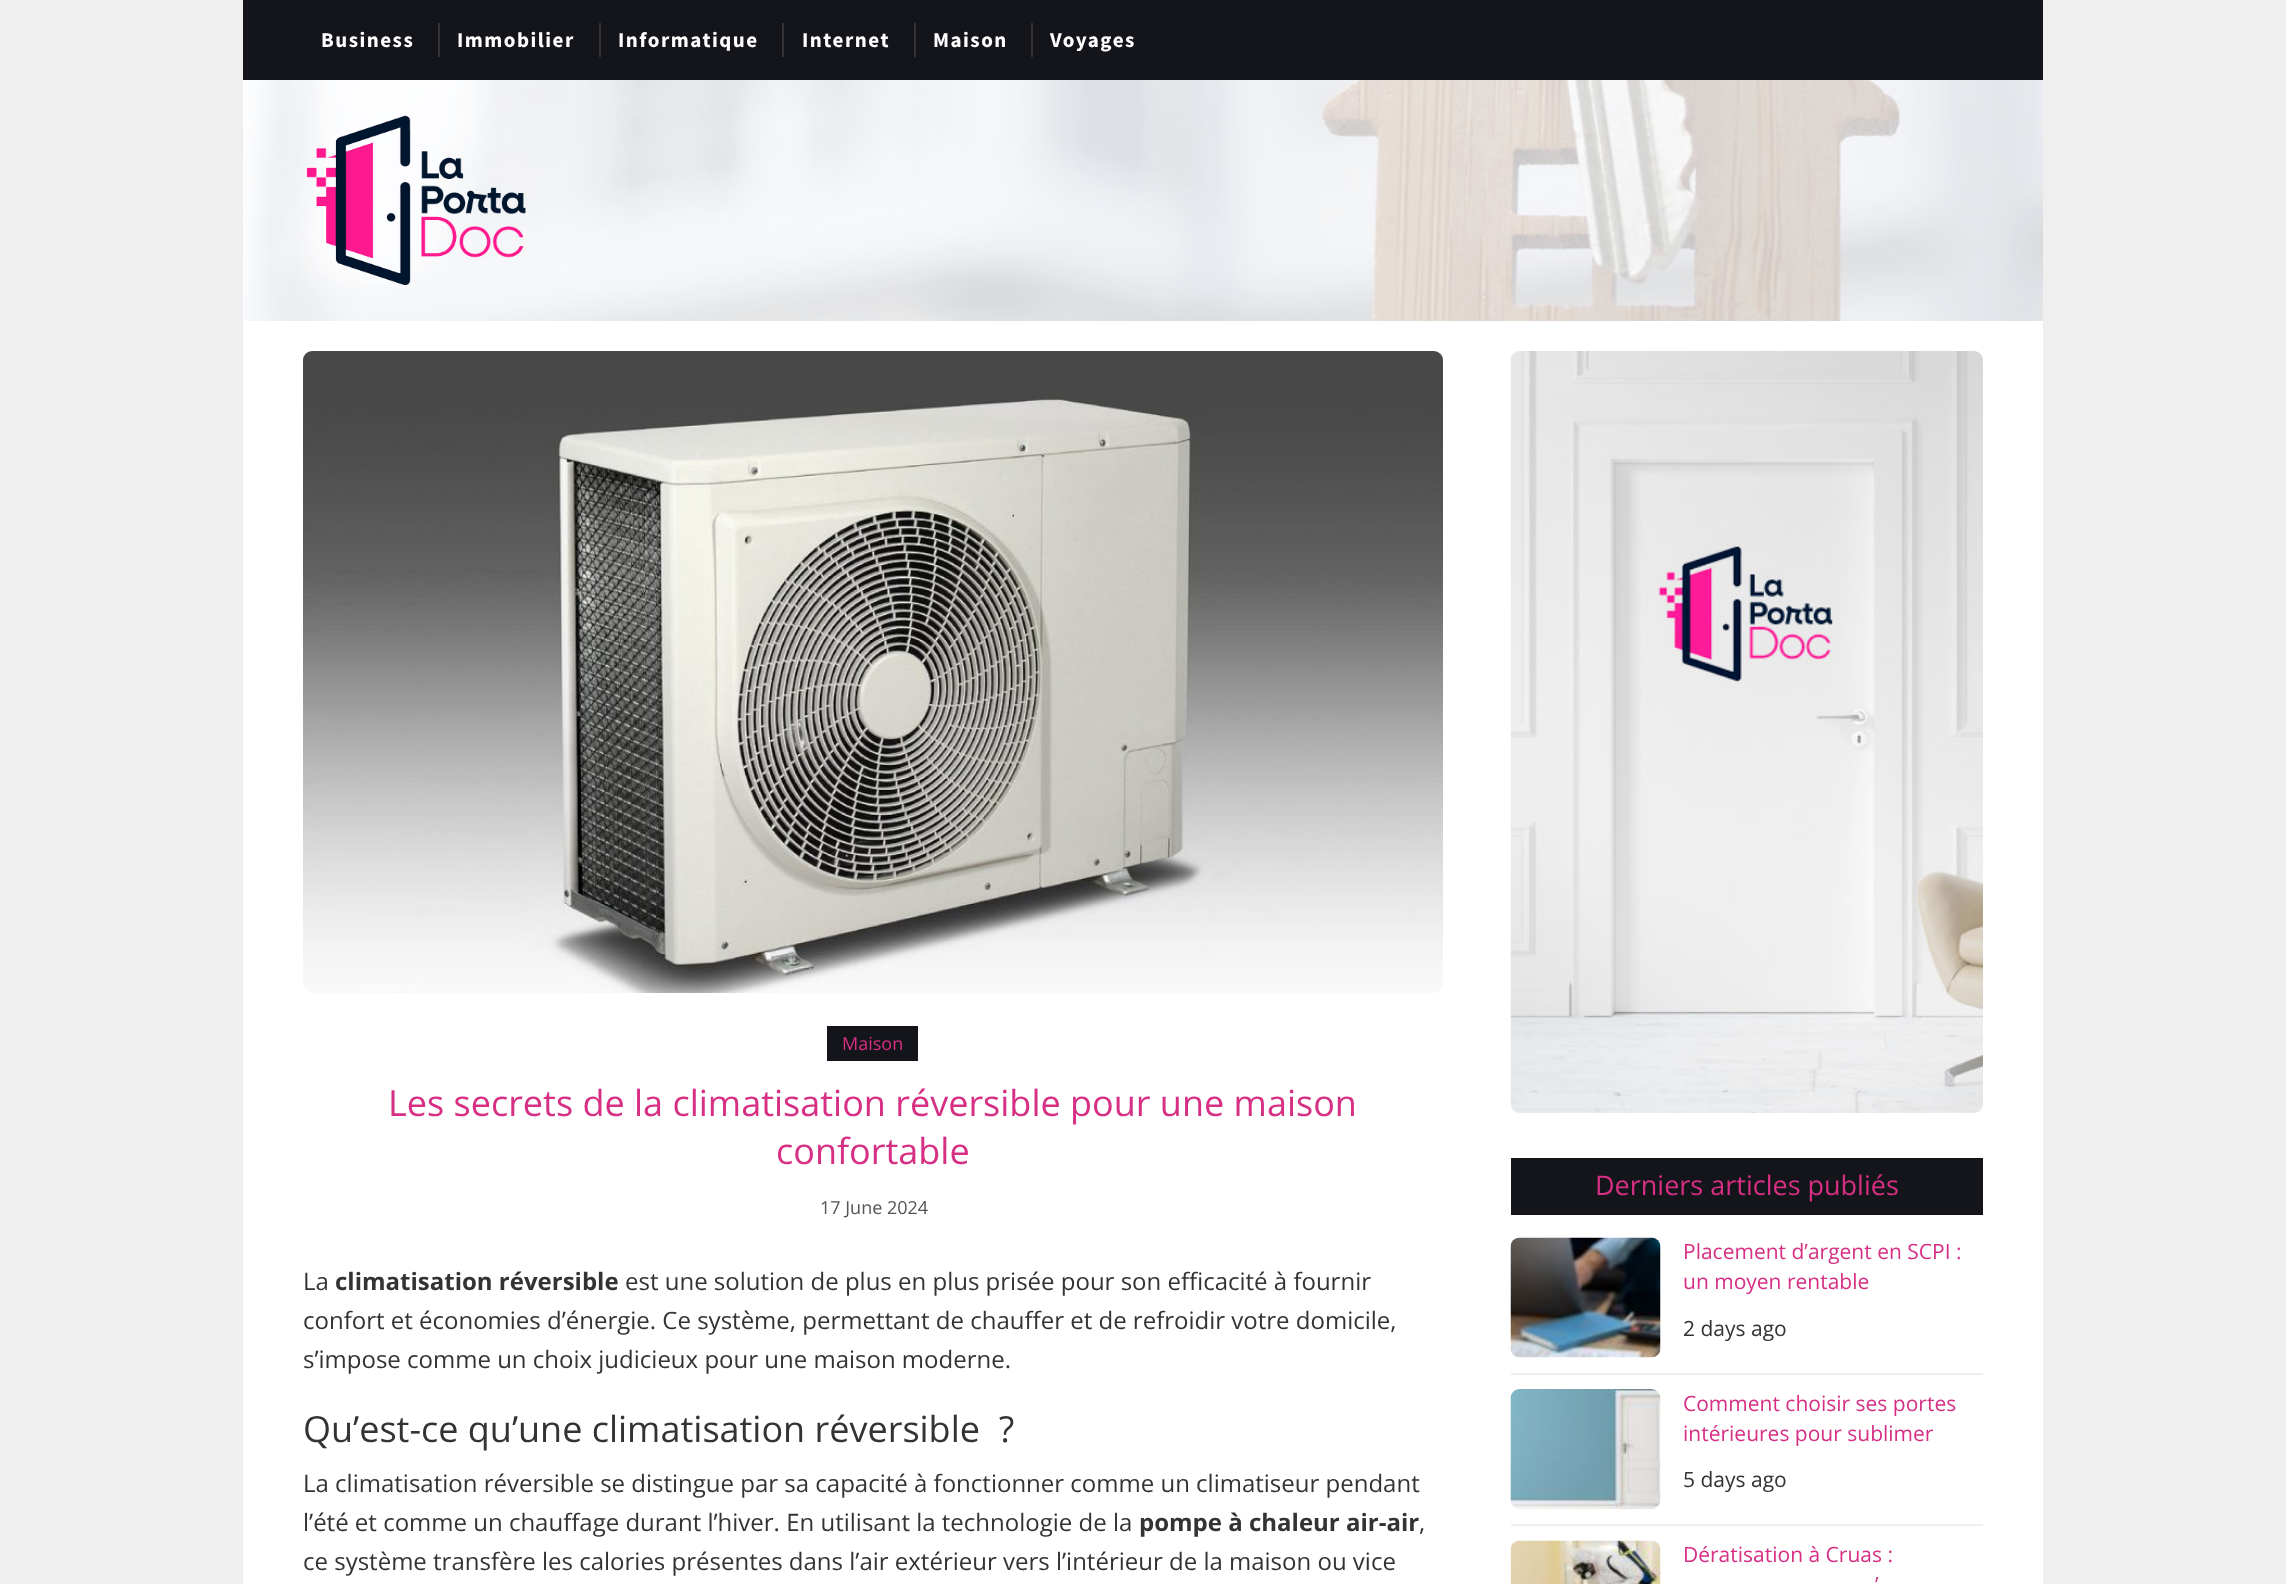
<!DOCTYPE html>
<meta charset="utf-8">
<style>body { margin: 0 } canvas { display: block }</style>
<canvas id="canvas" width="2286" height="1584"></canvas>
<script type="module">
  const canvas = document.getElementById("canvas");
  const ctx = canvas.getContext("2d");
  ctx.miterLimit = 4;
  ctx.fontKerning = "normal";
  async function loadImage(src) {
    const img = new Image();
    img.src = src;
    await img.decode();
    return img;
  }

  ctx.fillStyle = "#efefef";
  ctx.fillRect(0, 0, 2286, 1584);
  ctx.drawImage(await loadImage("img1.png"), 243, 80, 1800, 241);
  ctx.fillStyle = "#14141b";
  ctx.fillRect(243, 0, 1800, 80);
  ctx.letterSpacing = "1.5px";
  ctx.font = "bold 21px Source Sans Pro";
  ctx.fillStyle = "#ffffff";
  ctx.fillText("Business", 321, 47);
  ctx.fillStyle = "#333333";
  ctx.fillRect(438, 23, 2, 34);
  ctx.fillStyle = "#ffffff";
  ctx.fillText("Immobilier", 457, 47);
  ctx.fillStyle = "#333333";
  ctx.fillRect(599, 23, 2, 34);
  ctx.fillStyle = "#ffffff";
  ctx.fillText("Informatique", 618, 47);
  ctx.fillStyle = "#333333";
  ctx.fillRect(782, 23, 2, 34);
  ctx.fillStyle = "#ffffff";
  ctx.fillText("Internet", 802, 47);
  ctx.fillStyle = "#333333";
  ctx.fillRect(914, 23, 2, 34);
  ctx.fillStyle = "#ffffff";
  ctx.fillText("Maison", 933, 47);
  ctx.fillStyle = "#333333";
  ctx.fillRect(1031, 23, 2, 34);
  ctx.fillStyle = "#ffffff";
  ctx.fillText("Voyages", 1050, 47);
  ctx.drawImage(await loadImage("img2.png"), 306, 115, 220, 171);
  ctx.fillRect(243, 321, 1800, 1263);
  ctx.drawImage(await loadImage("img3.png"), 303, 351, 1140, 642);
  ctx.fillStyle = "#14141b";
  ctx.fillRect(827, 1026, 91, 35);
  ctx.letterSpacing = "0px";
  ctx.font = "18px Open Sans";
  ctx.fillStyle = "#d62f84";
  ctx.fillText("Maison", 842, 1050);
  ctx.font = "36px Open Sans";
  ctx.fillText("Les secrets de la climatisation réversible pour une maison", 388, 1116);
  ctx.fillText("confortable", 776, 1164);
  ctx.font = "18px Open Sans";
  ctx.fillStyle = "#545454";
  ctx.fillText("17 June 2024", 820, 1214);
  ctx.font = "24px Open Sans";
  ctx.fillStyle = "#333333";
  ctx.fillText("La", 303, 1290);
  ctx.font = "bold 24px Open Sans";
  ctx.fillText("climatisation réversible", 335, 1290);
  ctx.font = "24px Open Sans";
  ctx.fillText("est une solution de plus en plus prisée pour son efficacité à fournir", 625, 1290);
  ctx.fillText("confort et économies d’énergie. Ce système, permettant de chauffer et de refroidir votre domicile,", 303, 1329);
  ctx.fillText("s’impose comme un choix judicieux pour une maison moderne.", 303, 1368);
  ctx.font = "36px Open Sans";
  ctx.fillText("Qu’est-ce qu’une climatisation réversible  ?", 303, 1442);
  ctx.font = "24px Open Sans";
  ctx.fillText("La climatisation réversible se distingue par sa capacité à fonctionner comme un climatiseur pendant", 303, 1492);
  ctx.fillText("l’été et comme un chauffage durant l’hiver. En utilisant la technologie de la", 303, 1531);
  ctx.font = "bold 24px Open Sans";
  ctx.fillText("pompe à chaleur air-air", 1139, 1531);
  ctx.font = "24px Open Sans";
  ctx.fillText(",", 1419, 1531);
  ctx.fillText("ce système transfère les calories présentes dans l’air extérieur vers l’intérieur de la maison ou vice", 303, 1570);
  ctx.drawImage(await loadImage("img4.png"), 1510, 351, 473, 762);
  ctx.fillStyle = "#14141b";
  ctx.fillRect(1511, 1158, 472, 57);
  ctx.font = "27px Open Sans";
  ctx.fillStyle = "#d62f84";
  ctx.fillText("Derniers articles publiés", 1595, 1195);
  ctx.fillStyle = "#efefef";
  ctx.fillRect(1511, 1373, 472, 2);
  ctx.drawImage(await loadImage("img5.png"), 1510, 1237, 151, 121);
  ctx.font = "21px Open Sans";
  ctx.fillStyle = "#d62f84";
  ctx.fillText("Placement d’argent en SCPI :", 1683, 1259);
  ctx.fillText("un moyen rentable", 1683, 1289);
  ctx.fillStyle = "#333333";
  ctx.fillText("2 days ago", 1683, 1336);
  ctx.fillStyle = "#efefef";
  ctx.fillRect(1511, 1524, 472, 2);
  ctx.drawImage(await loadImage("img6.png"), 1510, 1389, 151, 120);
  ctx.fillStyle = "#d62f84";
  ctx.fillText("Comment choisir ses portes", 1683, 1411);
  ctx.fillText("intérieures pour sublimer", 1683, 1441);
  ctx.fillStyle = "#333333";
  ctx.fillText("5 days ago", 1683, 1487);
  ctx.drawImage(await loadImage("img7.png"), 1510, 1540, 151, 44);
  ctx.fillStyle = "#d62f84";
  ctx.fillText("Dératisation à Cruas :", 1683, 1562);
  ctx.fillText("’", 1875, 1592);
</script>
